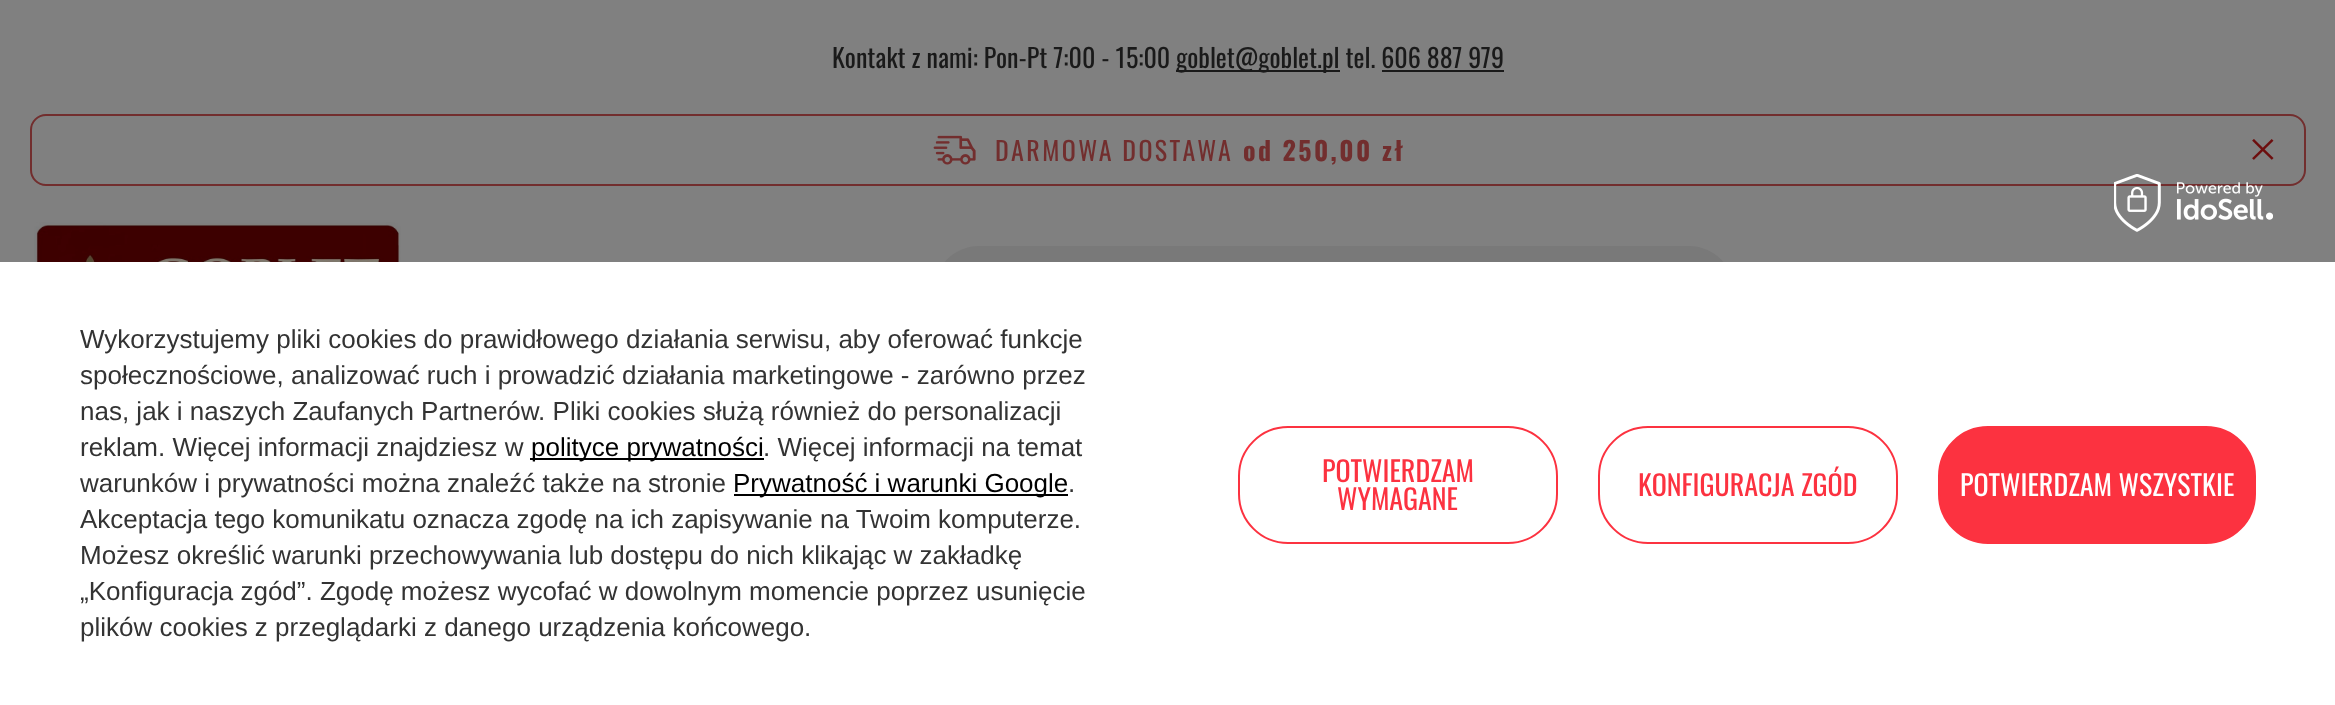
<!DOCTYPE html>
<meta charset="utf-8">
<style>body { margin: 0 } canvas { display: block }</style>
<canvas id="canvas" width="2335" height="705"></canvas>
<script type="module">
  const canvas = document.getElementById("canvas");
  const ctx = canvas.getContext("2d");
  ctx.miterLimit = 4;
  ctx.fontKerning = "normal";
  async function loadImage(src) {
    const img = new Image();
    img.src = src;
    await img.decode();
    return img;
  }

  ctx.fillStyle = "#808080";
  ctx.fillRect(0, 0, 2335, 705);
  ctx.font = "26px Oswald";
  ctx.fillStyle = "#1a1a1a";
  ctx.fillText("Kontakt z nami: Pon-Pt 7:00 - 15:00", 832, 68);
  ctx.fillRect(1176, 70, 164, 2);
  ctx.fillText("goblet@goblet.pl tel. 606 887 979", 1176, 68);
  ctx.fillRect(1382, 70, 122, 2);
  ctx.beginPath();
  ctx.roundRect(31, 115, 2274, 70, 15);
  ctx.strokeStyle = "#722e2e";
  ctx.lineWidth = 2;
  ctx.stroke();
  ctx.drawImage(await loadImage("img1.png"), 933, 135, 43, 30);
  ctx.letterSpacing = "2.4px";
  ctx.fillStyle = "#722e2e";
  ctx.fillText("DARMOWA DOSTAWA", 995, 161);
  ctx.font = "bold 26px Oswald";
  ctx.fillText("od 250,00 zł", 1243, 161);
  ctx.drawImage(await loadImage("img2.png"), 2252, 139, 22, 21);
  ctx.drawImage(await loadImage("img3.png"), 34, 222, 367, 40);
  ctx.fillStyle = "#797979";
  ctx.beginPath();
  ctx.roundRect(934, 246, 800, 90, 45);
  ctx.fill();
  ctx.fillStyle = "#ffffff";
  ctx.fillRect(0, 262, 2335, 443);
  ctx.drawImage(await loadImage("img4.png"), 2114, 174, 159, 58);
  ctx.letterSpacing = "0px";
  ctx.font = "26px Liberation Sans";
  ctx.fillStyle = "#333333";
  ctx.fillText("Wykorzystujemy pliki cookies do prawidłowego działania serwisu, aby oferować funkcje", 80, 348);
  ctx.fillText("społecznościowe, analizować ruch i prowadzić działania marketingowe - zarówno przez", 80, 384);
  ctx.fillText("nas, jak i naszych Zaufanych Partnerów. Pliki cookies służą również do personalizacji", 80, 420);
  ctx.fillText("reklam. Więcej informacji znajdziesz w", 80, 456);
  ctx.fillStyle = "#000000";
  ctx.fillRect(530, 458, 234, 2);
  ctx.fillText("polityce prywatności", 531, 456);
  ctx.fillStyle = "#333333";
  ctx.fillText(". Więcej informacji na temat", 763, 456);
  ctx.fillText("warunków i prywatności można znaleźć także na stronie", 80, 492);
  ctx.fillStyle = "#000000";
  ctx.fillRect(734, 494, 334, 2);
  ctx.fillText("Prywatność i warunki Google", 733, 492);
  ctx.fillStyle = "#333333";
  ctx.fillText(".", 1068, 492);
  ctx.fillText("Akceptacja tego komunikatu oznacza zgodę na ich zapisywanie na Twoim komputerze.", 80, 528);
  ctx.fillText("Możesz określić warunki przechowywania lub dostępu do nich klikając w zakładkę", 80, 564);
  ctx.fillText("„Konfiguracja zgód”. Zgodę możesz wycofać w dowolnym momencie poprzez usunięcie", 80, 600);
  ctx.fillText("plików cookies z przeglądarki z danego urządzenia końcowego.", 80, 636);
  ctx.beginPath();
  ctx.roundRect(1239, 427, 318, 116, 49);
  ctx.strokeStyle = "#fc3240";
  ctx.stroke();
  ctx.font = "28px Oswald";
  ctx.fillStyle = "#fc3240";
  ctx.fillText("POTWIERDZAM", 1322, 482);
  ctx.fillText("WYMAGANE", 1337, 510);
  ctx.beginPath();
  ctx.roundRect(1599, 427, 298, 116, 49);
  ctx.stroke();
  ctx.fillText("KONFIGURACJA ZGÓD", 1638, 496);
  ctx.beginPath();
  ctx.roundRect(1939, 427, 316, 116, 49);
  ctx.fill();
  ctx.stroke();
  ctx.fillStyle = "#ffffff";
  ctx.fillText("POTWIERDZAM WSZYSTKIE", 1960, 496);
</script>
